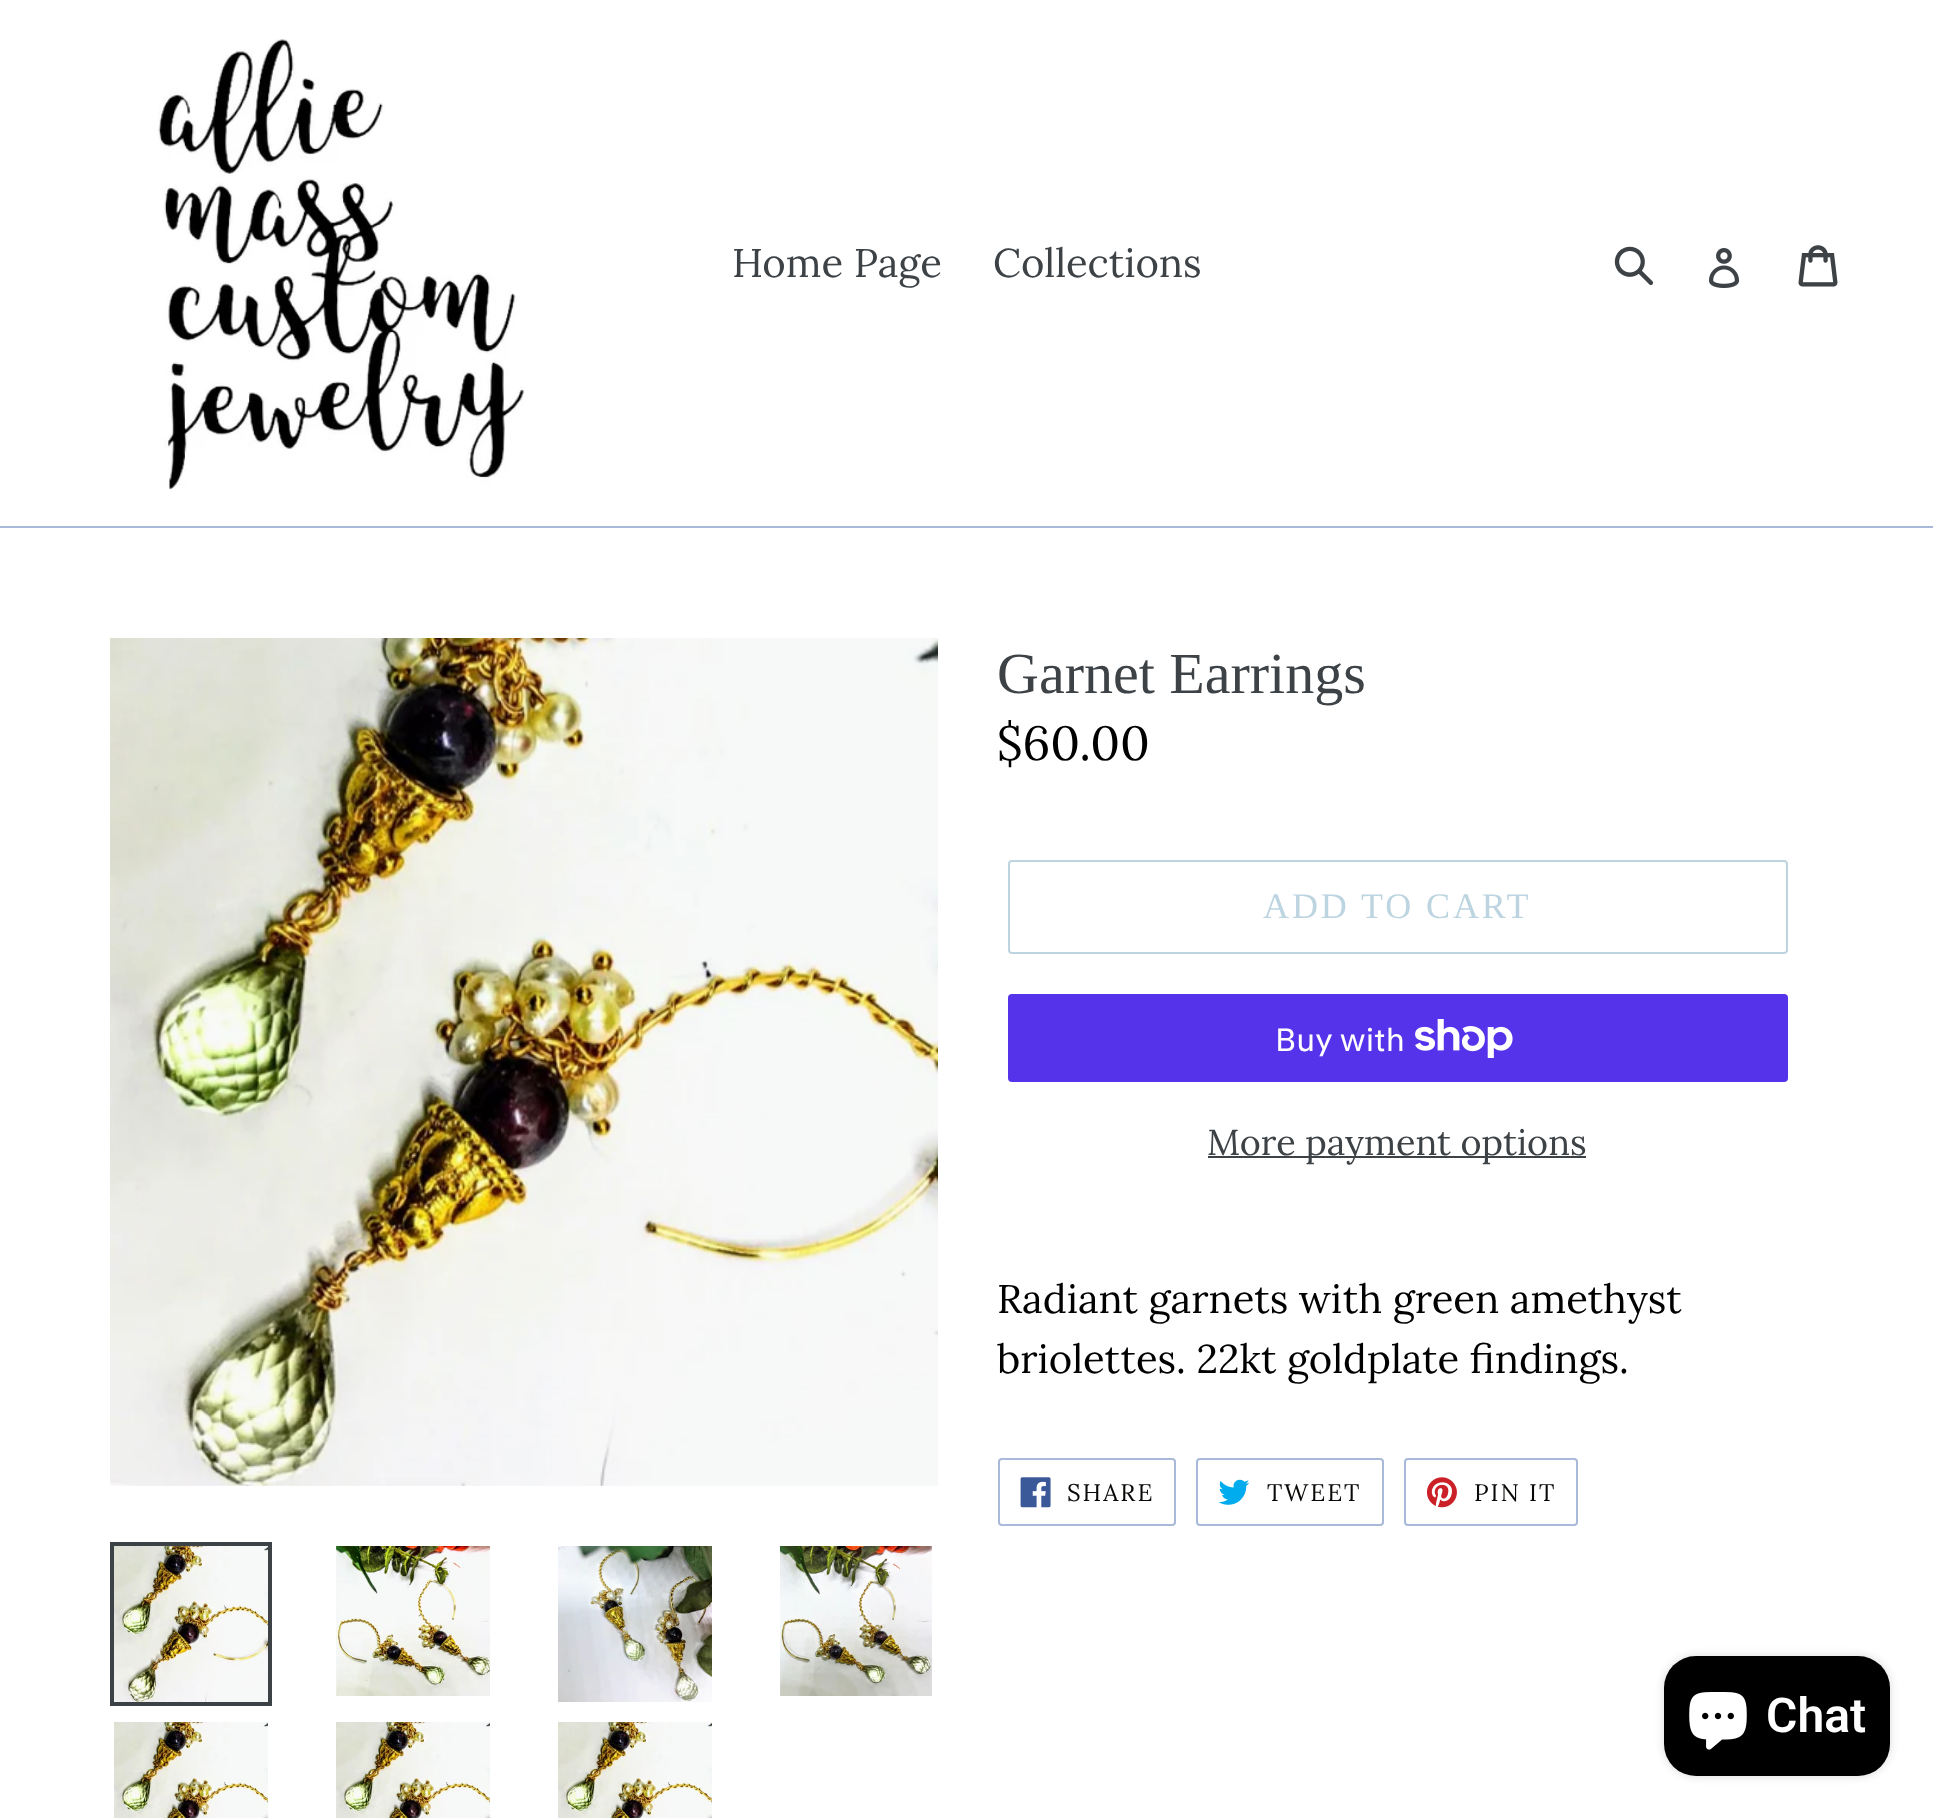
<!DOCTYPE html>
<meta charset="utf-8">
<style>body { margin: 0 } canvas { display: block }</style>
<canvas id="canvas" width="1933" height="1818"></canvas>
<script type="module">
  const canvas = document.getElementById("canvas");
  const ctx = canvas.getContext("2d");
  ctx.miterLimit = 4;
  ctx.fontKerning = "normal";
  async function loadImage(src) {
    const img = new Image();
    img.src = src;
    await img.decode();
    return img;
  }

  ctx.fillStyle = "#ffffff";
  ctx.fillRect(0, 0, 1933, 1818);
  ctx.fillStyle = "#a9b9d9";
  ctx.fillRect(0, 526, 1933, 2);
  ctx.drawImage(await loadImage("img1.png"), 158, 39, 366, 451);
  ctx.font = "40px Lora";
  ctx.fillStyle = "#3d4246";
  ctx.fillText("Home Page", 732, 277);
  ctx.fillText("Collections", 993, 277);
  ctx.drawImage(await loadImage("img2.png"), 1614, 246, 40, 40);
  ctx.drawImage(await loadImage("img3.png"), 1709, 248, 31, 40);
  ctx.drawImage(await loadImage("img4.png"), 1798, 245, 40, 42);
  ctx.drawImage(await loadImage("img5.png"), 110, 638, 828, 848);
  ctx.strokeStyle = "#3d4246";
  ctx.lineWidth = 4;
  ctx.strokeRect(112, 1544, 158, 160);
  ctx.drawImage(await loadImage("img6.png"), 114, 1546, 154, 156);
  ctx.drawImage(await loadImage("img7.png"), 336, 1546, 154, 150);
  ctx.drawImage(await loadImage("img8.png"), 558, 1546, 154, 156);
  ctx.drawImage(await loadImage("img9.png"), 780, 1546, 152, 150);
  ctx.drawImage(await loadImage("img10.png"), 114, 1722, 154, 96);
  ctx.drawImage(await loadImage("img10.png"), 336, 1722, 154, 96);
  ctx.drawImage(await loadImage("img11.png"), 558, 1722, 154, 96);
  ctx.font = "58px Liberation Serif";
  ctx.fillText("Garnet Earrings", 997, 693);
  ctx.font = "48px Lora";
  ctx.fillStyle = "#000000";
  ctx.fillText("$60.00", 997, 760);
  ctx.beginPath();
  ctx.roundRect(1009, 861, 778, 92, 3);
  ctx.strokeStyle = "#bdd4e1";
  ctx.lineWidth = 2;
  ctx.stroke();
  ctx.letterSpacing = "2.9px";
  ctx.font = "36px Liberation Serif";
  ctx.fillStyle = "#bdd4e1";
  ctx.fillText("ADD TO CART", 1263, 918);
  ctx.fillStyle = "#5433eb";
  ctx.beginPath();
  ctx.roundRect(1008, 994, 780, 88, 4);
  ctx.fill();
  ctx.letterSpacing = "0px";
  ctx.font = "32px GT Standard";
  ctx.fillStyle = "#ffffff";
  ctx.fillText("Buy with", 1275, 1051);
  ctx.drawImage(await loadImage("img12.png"), 1415, 1019, 98, 39);
  ctx.fillStyle = "#3d4246";
  ctx.fillRect(1208, 1156, 378, 2);
  ctx.font = "36px Lora";
  ctx.fillText("More payment options", 1207, 1155);
  ctx.font = "40px Lora";
  ctx.fillStyle = "#000000";
  ctx.fillText("Radiant garnets with green amethyst", 997, 1313);
  ctx.fillText("briolettes. 22kt goldplate findings.", 997, 1373);
  ctx.beginPath();
  ctx.roundRect(999, 1459, 176, 66, 3);
  ctx.strokeStyle = "#a9b9d9";
  ctx.stroke();
  ctx.drawImage(await loadImage("img13.png"), 1020, 1477, 31, 31);
  ctx.letterSpacing = "2px";
  ctx.font = "24px Lora";
  ctx.fillStyle = "#080806";
  ctx.fillText("SHARE", 1067, 1501);
  ctx.beginPath();
  ctx.roundRect(1197, 1459, 186, 66, 3);
  ctx.stroke();
  ctx.drawImage(await loadImage("img14.png"), 1218, 1479, 32, 26);
  ctx.fillText("TWEET", 1267, 1501);
  ctx.beginPath();
  ctx.roundRect(1405, 1459, 172, 66, 3);
  ctx.stroke();
  ctx.drawImage(await loadImage("img15.png"), 1426, 1477, 31, 31);
  ctx.fillText("PIN IT", 1474, 1501);
  ctx.fillStyle = "rgba(0, 0, 0, 0.15)";
  ctx.filter = "blur(5px)";
  ctx.beginPath();
  ctx.roundRect(1664, 1656, 226, 120, 32);
  ctx.fill();
  ctx.filter = "none";
  ctx.fillStyle = "#000000";
  ctx.beginPath();
  ctx.roundRect(1664, 1656, 226, 120, 32);
  ctx.fill();
  ctx.drawImage(await loadImage("img16.png"), 1689, 1692, 58, 58);
  ctx.letterSpacing = "0px";
  ctx.font = "600 48px Roboto";
  ctx.fillStyle = "#ffffff";
  ctx.fillText("Chat", 1766, 1732);
</script>
